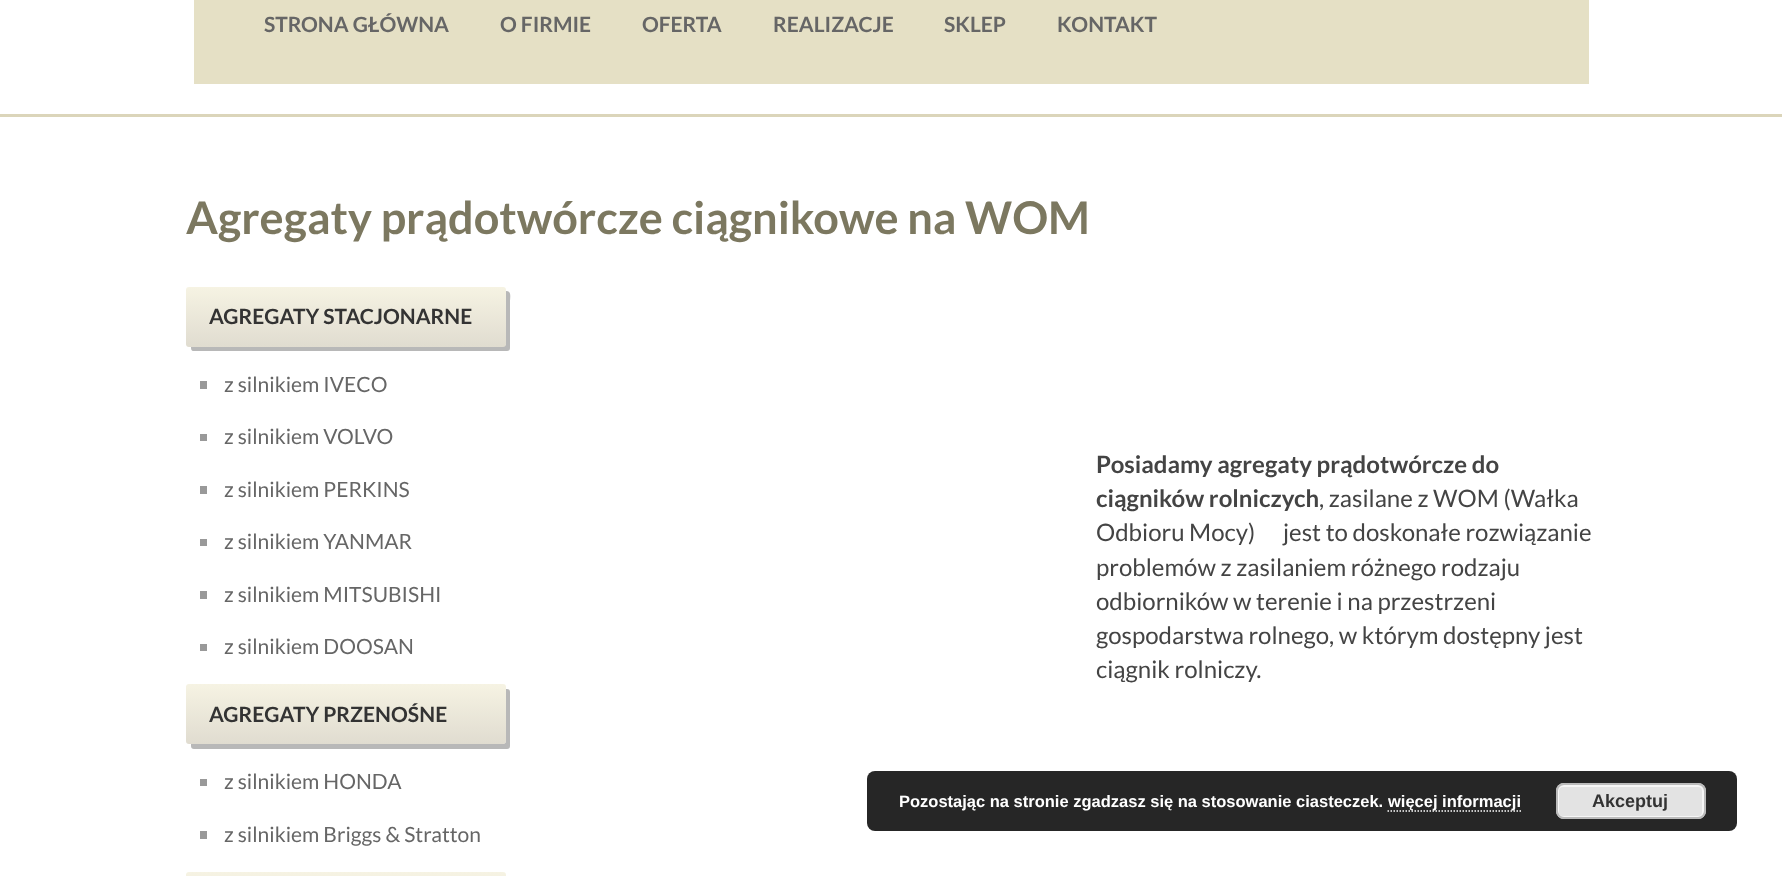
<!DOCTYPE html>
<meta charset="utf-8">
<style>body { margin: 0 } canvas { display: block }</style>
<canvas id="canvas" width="1782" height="876"></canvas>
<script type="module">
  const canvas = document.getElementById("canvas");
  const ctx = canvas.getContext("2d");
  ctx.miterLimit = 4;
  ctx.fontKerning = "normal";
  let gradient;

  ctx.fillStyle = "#ffffff";
  ctx.fillRect(0, 0, 1782, 876);
  ctx.fillStyle = "#dbd5ba";
  ctx.fillRect(0, 114, 1782, 3);
  ctx.fillStyle = "#e5e0c5";
  ctx.fillRect(194, 0, 1395, 84);
  ctx.font = "bold 21px Lato";
  ctx.fillStyle = "#666666";
  ctx.fillText("STRONA GŁÓWNA", 264, 32);
  ctx.fillText("O FIRMIE", 500, 32);
  ctx.fillText("OFERTA", 642, 32);
  ctx.fillText("REALIZACJE", 773, 32);
  ctx.fillText("SKLEP", 944, 32);
  ctx.fillText("KONTAKT", 1057, 32);
  ctx.font = "bold 45px Lato";
  ctx.fillStyle = "#7c7860";
  ctx.fillText("Agregaty prądotwórcze ciągnikowe na WOM", 186, 234);
  ctx.fillStyle = "#b8b8b8";
  ctx.beginPath();
  ctx.moveTo(191, 346);
  ctx.bezierCurveTo(191, 349, 191, 351, 194, 351);
  ctx.lineTo(507, 351);
  ctx.bezierCurveTo(509, 351, 510, 350, 510, 348);
  ctx.lineTo(510, 303);
  ctx.bezierCurveTo(510, 297, 512, 291, 506, 291);
  ctx.lineTo(506, 344);
  ctx.bezierCurveTo(506, 345, 504, 346, 502, 346);
  ctx.closePath();
  ctx.fill();
  gradient = ctx.createLinearGradient(346, 287, 346, 347);
  gradient.addColorStop(0, "#f6f3e3");
  gradient.addColorStop(1, "#e0dcd0");
  ctx.fillStyle = gradient;
  ctx.beginPath();
  ctx.roundRect(186, 287, 320, 60, 3);
  ctx.fill();
  ctx.font = "bold 21px Lato";
  ctx.fillStyle = "#333333";
  ctx.fillText("AGREGATY STACJONARNE", 209, 324);
  ctx.fillStyle = "#999999";
  ctx.fillRect(200, 381, 7, 8);
  ctx.font = "21px Lato";
  ctx.fillStyle = "#666666";
  ctx.fillText("z silnikiem IVECO", 224, 392);
  ctx.fillStyle = "#999999";
  ctx.fillRect(200, 434, 7, 7);
  ctx.fillStyle = "#666666";
  ctx.fillText("z silnikiem VOLVO", 224, 444);
  ctx.fillStyle = "#999999";
  ctx.fillRect(200, 486, 7, 8);
  ctx.fillStyle = "#666666";
  ctx.fillText("z silnikiem PERKINS", 224, 497);
  ctx.fillStyle = "#999999";
  ctx.fillRect(200, 539, 7, 7);
  ctx.fillStyle = "#666666";
  ctx.fillText("z silnikiem YANMAR", 224, 549);
  ctx.fillStyle = "#999999";
  ctx.fillRect(200, 591, 7, 8);
  ctx.fillStyle = "#666666";
  ctx.fillText("z silnikiem MITSUBISHI", 224, 602);
  ctx.fillStyle = "#999999";
  ctx.fillRect(200, 644, 7, 7);
  ctx.fillStyle = "#666666";
  ctx.fillText("z silnikiem DOOSAN", 224, 654);
  ctx.fillStyle = "#b8b8b8";
  ctx.beginPath();
  ctx.moveTo(191, 744);
  ctx.lineTo(191, 746);
  ctx.bezierCurveTo(191, 748, 192, 749, 194, 749);
  ctx.lineTo(507, 749);
  ctx.bezierCurveTo(509, 749, 510, 748, 510, 746);
  ctx.lineTo(510, 692);
  ctx.bezierCurveTo(510, 690, 509, 689, 507, 689);
  ctx.lineTo(506, 689);
  ctx.lineTo(506, 741);
  ctx.bezierCurveTo(506, 743, 504, 744, 502, 744);
  ctx.closePath();
  ctx.fill();
  gradient = ctx.createLinearGradient(346, 684, 346, 744);
  gradient.addColorStop(0, "#f6f3e3");
  gradient.addColorStop(1, "#e0dcd0");
  ctx.fillStyle = gradient;
  ctx.beginPath();
  ctx.roundRect(186, 684, 320, 60, 3);
  ctx.fill();
  ctx.font = "bold 21px Lato";
  ctx.fillStyle = "#333333";
  ctx.fillText("AGREGATY PRZENOŚNE", 209, 722);
  ctx.fillStyle = "#999999";
  ctx.fillRect(200, 779, 7, 7);
  ctx.font = "21px Lato";
  ctx.fillStyle = "#666666";
  ctx.fillText("z silnikiem HONDA", 224, 789);
  ctx.fillStyle = "#999999";
  ctx.fillRect(200, 831, 7, 8);
  ctx.fillStyle = "#666666";
  ctx.fillText("z silnikiem Briggs & Stratton", 224, 842);
  gradient = ctx.createLinearGradient(346, 872, 346, 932);
  gradient.addColorStop(0, "#f6f3e3");
  gradient.addColorStop(1, "#e0dcd0");
  ctx.fillStyle = gradient;
  ctx.beginPath();
  ctx.roundRect(186, 872, 320, 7, 3);
  ctx.fill();
  ctx.font = "bold 24px Lato";
  ctx.fillStyle = "#444444";
  ctx.fillText("Posiadamy agregaty prądotwórcze do", 1096, 473);
  ctx.fillText("ciągników rolniczych", 1096, 507);
  ctx.font = "24px Lato";
  ctx.fillText(", zasilane z WOM (Wałka", 1319, 507);
  ctx.fillText("Odbioru Mocy)", 1096, 541);
  ctx.fillText("jest to doskonałe rozwiązanie", 1283, 541);
  ctx.fillText("problemów z zasilaniem różnego rodzaju", 1096, 576);
  ctx.fillText("odbiorników w terenie i na przestrzeni", 1096, 610);
  ctx.fillText("gospodarstwa rolnego, w którym dostępny jest", 1096, 644);
  ctx.fillText("ciągnik rolniczy.", 1096, 678);
  ctx.fillStyle = "#262626";
  ctx.beginPath();
  ctx.roundRect(867, 771, 870, 60, 8);
  ctx.fill();
  ctx.font = "bold 16.5px Liberation Sans";
  ctx.fillStyle = "#ffffff";
  ctx.fillText("Pozostając na stronie zgadzasz się na stosowanie ciasteczek.", 899, 807);
  ctx.beginPath();
  ctx.moveTo(1387.5, 811);
  ctx.lineTo(1521, 811);
  ctx.strokeStyle = "#ffffff";
  ctx.lineWidth = 1.5;
  ctx.setLineDash([1.5, 1.5]);
  ctx.stroke();
  ctx.fillText("więcej informacji", 1388, 807);
  ctx.fillStyle = "#e3e3e3";
  ctx.beginPath();
  ctx.roundRect(1556, 783, 150, 36, 8);
  ctx.fill();
  ctx.beginPath();
  ctx.roundRect(1558, 786, 145, 31, 5);
  ctx.strokeStyle = "#f6f6f6";
  ctx.lineWidth = 2;
  ctx.setLineDash([]);
  ctx.stroke();
  ctx.beginPath();
  ctx.roundRect(1557, 784, 148, 34, 7);
  ctx.strokeStyle = "#bbbbbb";
  ctx.stroke();
  ctx.font = "bold 18px Liberation Sans";
  ctx.fillStyle = "#333333";
  ctx.fillText("Akceptuj", 1592, 807);
</script>
